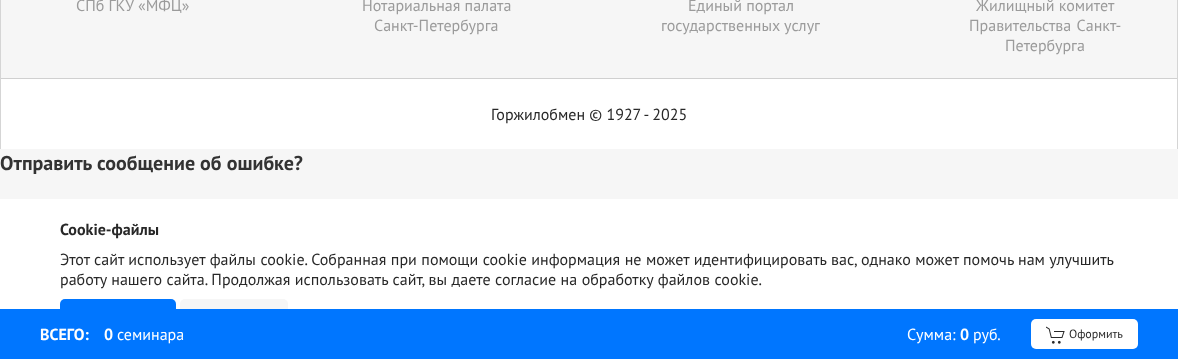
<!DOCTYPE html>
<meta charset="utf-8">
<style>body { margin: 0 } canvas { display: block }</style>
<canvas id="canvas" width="1178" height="359"></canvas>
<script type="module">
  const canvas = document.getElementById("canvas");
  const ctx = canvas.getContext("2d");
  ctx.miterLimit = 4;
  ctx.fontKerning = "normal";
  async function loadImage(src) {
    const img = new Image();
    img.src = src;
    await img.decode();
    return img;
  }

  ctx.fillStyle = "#f6f6f6";
  ctx.fillRect(0, 0, 1178, 359);
  ctx.fillStyle = "#ffffff";
  ctx.fillRect(1, 79, 1176, 70);
  ctx.fillStyle = "#d5d5d5";
  ctx.fillRect(1177, 0, 1, 149);
  ctx.fillRect(0, 0, 1, 149);
  ctx.fillStyle = "#d0d0d0";
  ctx.fillRect(1, 78, 1176, 1);
  ctx.font = "16px PT Sans";
  ctx.fillStyle = "#9b9b9b";
  ctx.fillText("CПб ГКУ «МФЦ»", 76, 11);
  ctx.fillText("Нотариальная палата", 362, 11);
  ctx.fillText("Санкт-Петербурга", 374, 31);
  ctx.fillText("Единый портал", 688, 11);
  ctx.fillText("государственных услуг", 661, 31);
  ctx.fillText("Жилищный комитет", 976, 11);
  ctx.wordSpacing = "1px";
  ctx.fillText("Правительства Санкт-", 969, 31);
  ctx.wordSpacing = "0px";
  ctx.fillText("Петербурга", 1005, 51);
  ctx.fillStyle = "#282828";
  ctx.fillText("Горжилобмен © 1927 - 2025", 491, 120);
  ctx.fillStyle = "#ffffff";
  ctx.fillRect(0, 199, 1178, 110);
  ctx.fillStyle = "#0076ff";
  ctx.beginPath();
  ctx.roundRect(60, 299, 116, 40, 5);
  ctx.fill();
  ctx.fillStyle = "#f6f6f6";
  ctx.beginPath();
  ctx.roundRect(180, 299, 108, 40, 5);
  ctx.fill();
  ctx.fillStyle = "#0076ff";
  ctx.fillRect(0, 309, 1178, 50);
  ctx.font = "bold 16px PT Sans";
  ctx.fillStyle = "#ffffff";
  ctx.fillText("ВСЕГО:", 40, 340);
  ctx.fillText("0", 104, 340);
  ctx.font = "16px PT Sans";
  ctx.fillText("семинара", 117, 340);
  ctx.fillText("Сумма:", 907, 340);
  ctx.font = "bold 16px PT Sans";
  ctx.fillText("0", 960, 340);
  ctx.font = "16px PT Sans";
  ctx.fillText("руб.", 973, 340);
  ctx.beginPath();
  ctx.roundRect(1031, 319, 107, 30, 5);
  ctx.fill();
  ctx.drawImage(await loadImage("img1.png"), 1046, 326, 19, 18);
  ctx.font = "12px PT Sans";
  ctx.fillStyle = "#282828";
  ctx.fillText("Оформить", 1069, 338);
  ctx.font = "bold 20px PT Sans";
  ctx.fillStyle = "#333333";
  ctx.fillText("Отправить сообщение об ошибке?", 0, 170);
  ctx.font = "bold 16px PT Sans";
  ctx.fillStyle = "#282828";
  ctx.fillText("Cookie-файлы", 60, 235);
  ctx.wordSpacing = "0.25px";
  ctx.font = "16px PT Sans";
  ctx.fillText("Этот сайт использует файлы cookie. Собранная при помощи cookie информация не может идентифицировать вас, однако может помочь", 60, 265);
  ctx.wordSpacing = "0px";
  ctx.fillText("нам улучшить", 1018, 265);
  ctx.wordSpacing = "0.25px";
  ctx.fillText("работу нашего сайта. Продолжая использовать сайт, вы даете согласие на обработку файлов cookie.", 60, 285);
</script>
